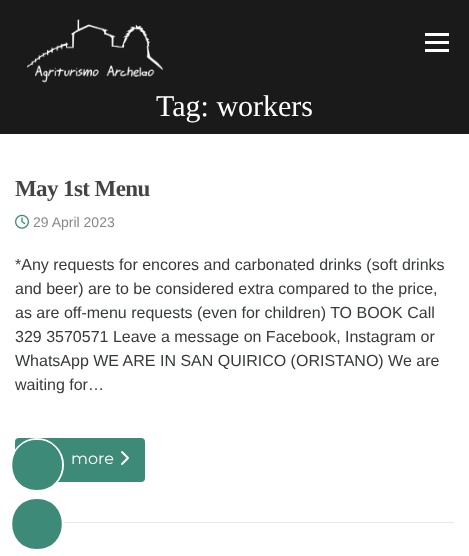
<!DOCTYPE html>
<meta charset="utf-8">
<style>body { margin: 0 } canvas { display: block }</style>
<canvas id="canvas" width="469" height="556"></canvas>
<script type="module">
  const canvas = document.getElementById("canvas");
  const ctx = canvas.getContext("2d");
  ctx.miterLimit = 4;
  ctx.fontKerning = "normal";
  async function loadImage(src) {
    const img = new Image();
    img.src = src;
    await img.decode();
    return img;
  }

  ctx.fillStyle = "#ffffff";
  ctx.fillRect(0, 0, 469, 556);
  ctx.fillStyle = "#1a1a1a";
  ctx.fillRect(0, 0, 469, 134);
  ctx.drawImage(await loadImage("img1.png"), 27, 19, 136, 64);
  ctx.fillStyle = "#ffffff";
  ctx.fillRect(425, 41, 24, 3);
  ctx.fillRect(425, 33, 24, 3);
  ctx.fillRect(425, 49, 24, 3);
  ctx.font = "30px Liberation Serif";
  ctx.fillText("Tag: workers", 156, 116);
  ctx.fillStyle = "#e9e9e9";
  ctx.fillRect(61, 522, 393, 1);
  ctx.letterSpacing = "-0.6px";
  ctx.font = "bold 23px Liberation Serif";
  ctx.fillStyle = "#444444";
  ctx.fillText("May 1st Menu", 15, 196);
  ctx.drawImage(await loadImage("img2.png"), 15, 214, 14, 15);
  ctx.letterSpacing = "0px";
  ctx.font = "14px Liberation Sans";
  ctx.fillStyle = "#888888";
  ctx.fillText("29 April 2023", 33, 227);
  ctx.font = "16px Liberation Sans";
  ctx.fillStyle = "#373a3c";
  ctx.fillText("*Any requests for encores and carbonated drinks (soft drinks", 15, 270);
  ctx.fillText("and beer) are to be considered extra compared to the price,", 15, 294);
  ctx.fillText("as are off-menu requests (even for children) TO BOOK Call", 15, 318);
  ctx.fillText("329 3570571 Leave a message on Facebook, Instagram or", 15, 342);
  ctx.fillText("WhatsApp WE ARE IN SAN QUIRICO (ORISTANO) We are", 15, 366);
  ctx.fillText("waiting for…", 15, 390);
  ctx.fillStyle = "#3d8a78";
  ctx.beginPath();
  ctx.roundRect(15, 438, 130, 44, 4);
  ctx.fill();
  ctx.font = "16px Montserrat";
  ctx.fillStyle = "#ffffff";
  ctx.fillText("more", 71, 464);
  ctx.drawImage(await loadImage("img3.png"), 121, 451, 8, 14);
  ctx.beginPath();
  ctx.arc(37, 465, 26, 0, Math.PI * 2);
  ctx.strokeStyle = "#ffffff";
  ctx.lineWidth = 2;
  ctx.stroke();
  ctx.fillStyle = "#3d8a78";
  ctx.beginPath();
  ctx.moveTo(37, 440);
  ctx.bezierCurveTo(70, 440, 70, 490, 37, 490);
  ctx.bezierCurveTo(4, 490, 4, 440, 37, 440);
  ctx.closePath();
  ctx.fill();
  ctx.beginPath();
  ctx.arc(37, 524, 26, 0, Math.PI * 2);
  ctx.stroke();
  ctx.beginPath();
  ctx.moveTo(37, 499);
  ctx.bezierCurveTo(70, 499, 70, 549, 37, 549);
  ctx.bezierCurveTo(4, 549, 4, 499, 37, 499);
  ctx.closePath();
  ctx.fill();
</script>
